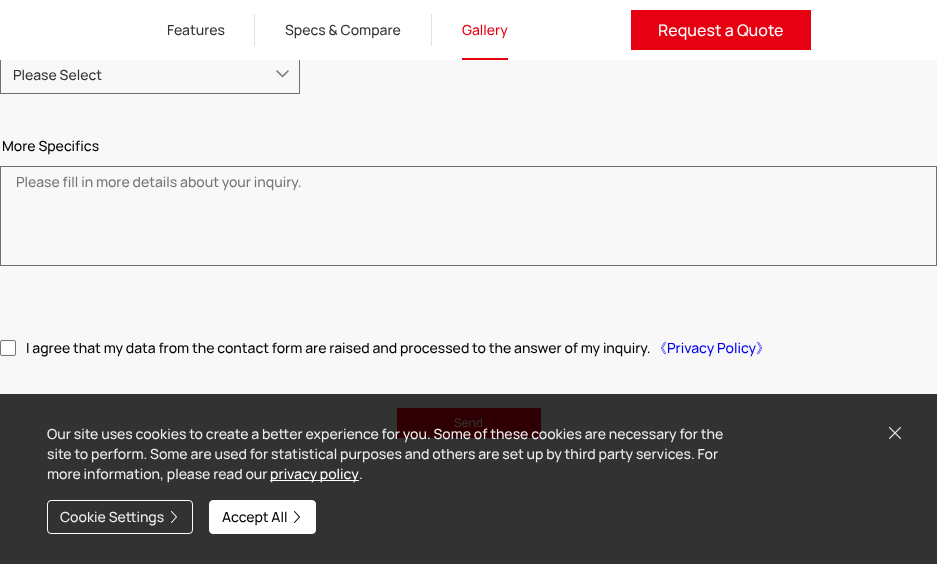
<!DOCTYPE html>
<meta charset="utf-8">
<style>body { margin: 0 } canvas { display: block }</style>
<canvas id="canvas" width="937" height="564"></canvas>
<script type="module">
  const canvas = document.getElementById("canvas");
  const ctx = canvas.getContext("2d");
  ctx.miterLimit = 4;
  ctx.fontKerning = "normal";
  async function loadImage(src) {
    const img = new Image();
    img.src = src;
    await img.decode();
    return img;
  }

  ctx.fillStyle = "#f8f8f8";
  ctx.fillRect(0, 0, 937, 564);
  ctx.fillStyle = "#323232";
  ctx.fillRect(0, 394, 937, 170);
  ctx.beginPath();
  ctx.moveTo(288, 71);
  ctx.lineTo(282.5, 76.5);
  ctx.lineTo(277, 71);
  ctx.strokeStyle = "#767676";
  ctx.lineWidth = 1.5;
  ctx.lineCap = "round";
  ctx.lineJoin = "round";
  ctx.stroke();
  ctx.strokeStyle = "#707070";
  ctx.lineWidth = 1;
  ctx.lineJoin = "miter";
  ctx.strokeRect(0.5, 54.5, 299, 39);
  ctx.fillStyle = "#ffffff";
  ctx.fillRect(0, 0, 937, 60);
  ctx.font = "500 14px Manrope";
  ctx.fillStyle = "#333333";
  ctx.fillText("Features", 167, 35);
  ctx.fillStyle = "#e0e0e0";
  ctx.fillRect(254, 14, 1, 32);
  ctx.fillStyle = "#333333";
  ctx.fillText("Specs & Compare", 285, 35);
  ctx.fillStyle = "#e0e0e0";
  ctx.fillRect(431, 14, 1, 32);
  ctx.fillStyle = "#e60012";
  ctx.fillText("Gallery", 462, 35);
  ctx.fillRect(462, 58, 46, 2);
  ctx.fillRect(631, 10, 180, 40);
  ctx.font = "500 16px Manrope";
  ctx.fillStyle = "#ffffff";
  ctx.fillText("Request a Quote", 658, 36);
  ctx.font = "500 14px Manrope";
  ctx.fillStyle = "#333333";
  ctx.fillText("Please Select", 13, 80);
  ctx.fillStyle = "#000000";
  ctx.fillText("More Specifics", 2, 151);
  ctx.strokeRect(0.5, 166.5, 936, 99);
  ctx.fillStyle = "#757575";
  ctx.fillText("Please fill in more details about your inquiry.", 16, 187);
  ctx.fillStyle = "#ffffff";
  ctx.beginPath();
  ctx.roundRect(0.5, 340.5, 15, 15, 1.5);
  ctx.fill();
  ctx.strokeStyle = "#767676";
  ctx.stroke();
  ctx.fillStyle = "#000000";
  ctx.fillText("I agree that my data from the contact form are raised and processed to the answer of my inquiry.", 26, 353);
  ctx.font = "500 14px WenQuanYi Zen Hei";
  ctx.fillStyle = "#0000ee";
  ctx.fillText("《", 653, 353);
  ctx.font = "500 14px Manrope";
  ctx.fillText("Privacy Policy", 667, 353);
  ctx.font = "500 14px WenQuanYi Zen Hei";
  ctx.fillText("》", 756, 353);
  ctx.fillStyle = "#2e0004";
  ctx.fillRect(397, 408, 144, 30);
  ctx.font = "500 12px Manrope";
  ctx.fillStyle = "#333333";
  ctx.fillText("Send", 454, 427);
  ctx.font = "500 14px Manrope";
  ctx.fillStyle = "#eeeeee";
  ctx.fillText("Our site uses cookies to create a better experience for you. Some of these cookies are necessary for the", 47, 439);
  ctx.drawImage(await loadImage("img1.png"), 889, 427, 12, 12);
  ctx.fillText("site to perform. Some are used for statistical purposes and others are set up by third party services. For", 47, 459);
  ctx.fillText("more information, please read our", 47, 479);
  ctx.fillStyle = "#ffffff";
  ctx.fillRect(270, 480, 89, 1);
  ctx.fillText("privacy policy", 270, 479);
  ctx.fillStyle = "#eeeeee";
  ctx.fillText(".", 359, 479);
  ctx.beginPath();
  ctx.roundRect(47.5, 500.5, 145, 33, 3.5);
  ctx.strokeStyle = "#ffffff";
  ctx.stroke();
  ctx.fillText("Cookie Settings", 60, 522);
  ctx.beginPath();
  ctx.moveTo(171.5, 511.5);
  ctx.lineTo(176.5, 517);
  ctx.lineTo(171.5, 522.5);
  ctx.lineWidth = 1.1;
  ctx.lineJoin = "round";
  ctx.stroke();
  ctx.fillStyle = "#ffffff";
  ctx.beginPath();
  ctx.roundRect(209.5, 500.5, 106, 33, 3.5);
  ctx.fill();
  ctx.lineWidth = 1;
  ctx.lineJoin = "miter";
  ctx.stroke();
  ctx.fillStyle = "#000000";
  ctx.fillText("Accept All", 222, 522);
  ctx.beginPath();
  ctx.moveTo(294.5, 511.5);
  ctx.lineTo(299.5, 517);
  ctx.lineTo(294.5, 522.5);
  ctx.strokeStyle = "#000000";
  ctx.lineWidth = 1.1;
  ctx.lineJoin = "round";
  ctx.stroke();
</script>
